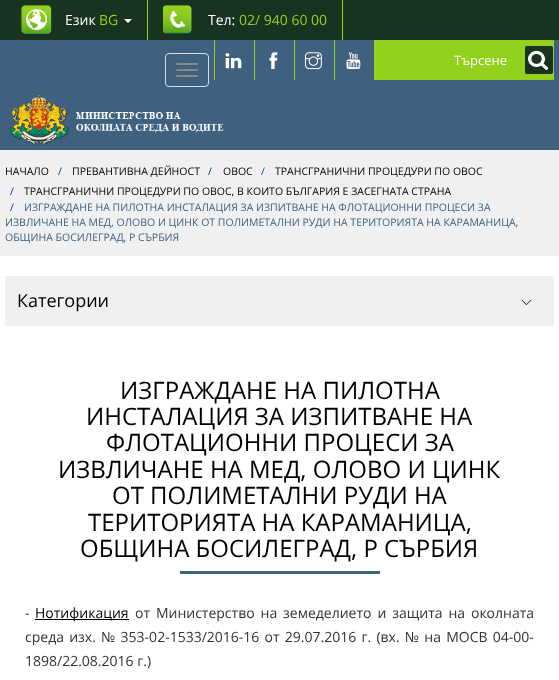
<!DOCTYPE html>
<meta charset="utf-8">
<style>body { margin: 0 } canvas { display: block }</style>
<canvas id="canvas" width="559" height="680"></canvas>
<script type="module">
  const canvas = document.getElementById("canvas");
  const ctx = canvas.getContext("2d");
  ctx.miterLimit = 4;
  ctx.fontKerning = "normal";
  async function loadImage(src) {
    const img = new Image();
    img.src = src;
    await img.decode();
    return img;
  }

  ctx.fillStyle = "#ffffff";
  ctx.fillRect(0, 0, 559, 680);
  ctx.fillStyle = "#183320";
  ctx.fillRect(0, 0, 559, 40);
  ctx.fillStyle = "#93d11f";
  ctx.fillRect(147, 0, 1, 40);
  ctx.drawImage(await loadImage("img1.png"), 20, 5, 32, 30);
  ctx.font = "14px Open Sans";
  ctx.fillStyle = "#ffffff";
  ctx.fillText("Език", 65, 25);
  ctx.fillStyle = "#93d11f";
  ctx.fillText("BG", 99, 25);
  ctx.fillStyle = "#ffffff";
  ctx.beginPath();
  ctx.moveTo(124, 19);
  ctx.lineTo(132, 19);
  ctx.lineTo(128, 23);
  ctx.closePath();
  ctx.fill();
  ctx.fillStyle = "#93d11f";
  ctx.fillRect(342, 0, 1, 40);
  ctx.drawImage(await loadImage("img2.png"), 163, 5, 30, 30);
  ctx.fillStyle = "#ffffff";
  ctx.fillText("Тел:", 208, 25);
  ctx.fillStyle = "#93d11f";
  ctx.fillText("02/ 940 60 00", 239, 25);
  ctx.fillStyle = "#40607f";
  ctx.fillRect(0, 40, 559, 110);
  ctx.fillStyle = "#93d11f";
  ctx.fillRect(214, 40, 1, 40);
  ctx.drawImage(await loadImage("img3.png"), 225, 53, 17, 16);
  ctx.fillRect(254, 40, 1, 40);
  ctx.drawImage(await loadImage("img4.png"), 269, 52, 9, 18);
  ctx.fillRect(294, 40, 1, 40);
  ctx.drawImage(await loadImage("img5.png"), 305, 52, 17, 18);
  ctx.fillRect(334, 40, 1, 40);
  ctx.drawImage(await loadImage("img6.png"), 346, 52, 15, 18);
  ctx.fillRect(374, 40, 180, 40);
  ctx.font = "13px Open Sans";
  ctx.fillStyle = "#ffffff";
  ctx.fillText("Търсене", 454, 65);
  ctx.drawImage(await loadImage("img7.png"), 525, 46, 28, 28);
  ctx.beginPath();
  ctx.roundRect(165.5, 53.5, 43, 33, 3.5);
  ctx.strokeStyle = "#dddddd";
  ctx.stroke();
  ctx.fillStyle = "#888888";
  ctx.beginPath();
  ctx.roundRect(176, 63, 22, 2, 1);
  ctx.fill();
  ctx.beginPath();
  ctx.roundRect(176, 69, 22, 2, 1);
  ctx.fill();
  ctx.beginPath();
  ctx.roundRect(176, 75, 22, 2, 1);
  ctx.fill();
  ctx.drawImage(await loadImage("img8.png"), 9, 95, 215, 50);
  ctx.fillStyle = "#f0f0f0";
  ctx.fillRect(0, 150, 559, 106);
  ctx.font = "10.5px Open Sans";
  ctx.fillStyle = "#000000";
  ctx.fillText("НАЧАЛО", 5, 175);
  ctx.fillStyle = "#002c8a";
  ctx.fillText("/", 58, 175);
  ctx.fillStyle = "#000000";
  ctx.fillText("ПРЕВАНТИВНА ДЕЙНОСТ", 72, 175);
  ctx.fillStyle = "#002c8a";
  ctx.fillText("/", 208, 175);
  ctx.fillStyle = "#000000";
  ctx.fillText("ОВОС", 223, 175);
  ctx.fillStyle = "#002c8a";
  ctx.fillText("/", 261, 175);
  ctx.fillStyle = "#000000";
  ctx.fillText("ТРАНСГРАНИЧНИ ПРОЦЕДУРИ ПО ОВОС", 275, 175);
  ctx.fillStyle = "#002c8a";
  ctx.fillText("/", 10, 195);
  ctx.fillStyle = "#000000";
  ctx.fillText("ТРАНСГРАНИЧНИ ПРОЦЕДУРИ ПО ОВОС, В КОИТО БЪЛГАРИЯ Е ЗАСЕГНАТА СТРАНА", 24, 195);
  ctx.fillStyle = "#002c8a";
  ctx.fillText("/", 10, 211);
  ctx.fillStyle = "#40607f";
  ctx.fillText("ИЗГРАЖДАНЕ НА ПИЛОТНА ИНСТАЛАЦИЯ ЗА ИЗПИТВАНЕ НА ФЛОТАЦИОННИ ПРОЦЕСИ ЗА", 24, 211);
  ctx.fillText("ИЗВЛИЧАНЕ НА МЕД, ОЛОВО И ЦИНК ОТ ПОЛИМЕТАЛНИ РУДИ НА ТЕРИТОРИЯТА НА КАРАМАНИЦА,", 5, 226);
  ctx.fillText("ОБЩИНА БОСИЛЕГРАД, Р СЪРБИЯ", 5, 241);
  ctx.fillStyle = "#f0f0f0";
  ctx.fillRect(5, 276, 549, 50);
  ctx.font = "18px Open Sans";
  ctx.fillStyle = "#000000";
  ctx.fillText("Категории", 17, 307);
  ctx.drawImage(await loadImage("img9.png"), 521, 299, 11, 6);
  ctx.font = "24px Open Sans";
  ctx.fillText("ИЗГРАЖДАНЕ НА ПИЛОТНА", 120, 399);
  ctx.fillText("ИНСТАЛАЦИЯ ЗА ИЗПИТВАНЕ НА", 86, 425);
  ctx.fillText("ФЛОТАЦИОННИ ПРОЦЕСИ ЗА", 106, 451);
  ctx.fillText("ИЗВЛИЧАНЕ НА МЕД, ОЛОВО И ЦИНК", 58, 478);
  ctx.fillText("ОТ ПОЛИМЕТАЛНИ РУДИ НА", 112, 504);
  ctx.fillText("ТЕРИТОРИЯТА НА КАРАМАНИЦА,", 88, 531);
  ctx.fillText("ОБЩИНА БОСИЛЕГРАД, Р СЪРБИЯ", 80, 557);
  ctx.fillStyle = "#40607f";
  ctx.fillRect(180, 571, 200, 3);
  ctx.font = "14px Open Sans";
  ctx.fillStyle = "#333333";
  ctx.fillText("-", 25, 618);
  ctx.fillStyle = "#000000";
  ctx.fillRect(35, 619, 94, 1);
  ctx.fillText("Нотификация", 35, 618);
  ctx.wordSpacing = "2.25px";
  ctx.fillStyle = "#333333";
  ctx.fillText("от Министерство на земеделието и защита на околната", 135, 618);
  ctx.wordSpacing = "1.6px";
  ctx.fillText("среда изх. № 353-02-1533/2016-16 от 29.07.2016 г. (вх. № на МОСВ 04-00-", 25, 642);
  ctx.wordSpacing = "0px";
  ctx.fillText("1898/22.08.2016 г.)", 25, 666);
</script>
